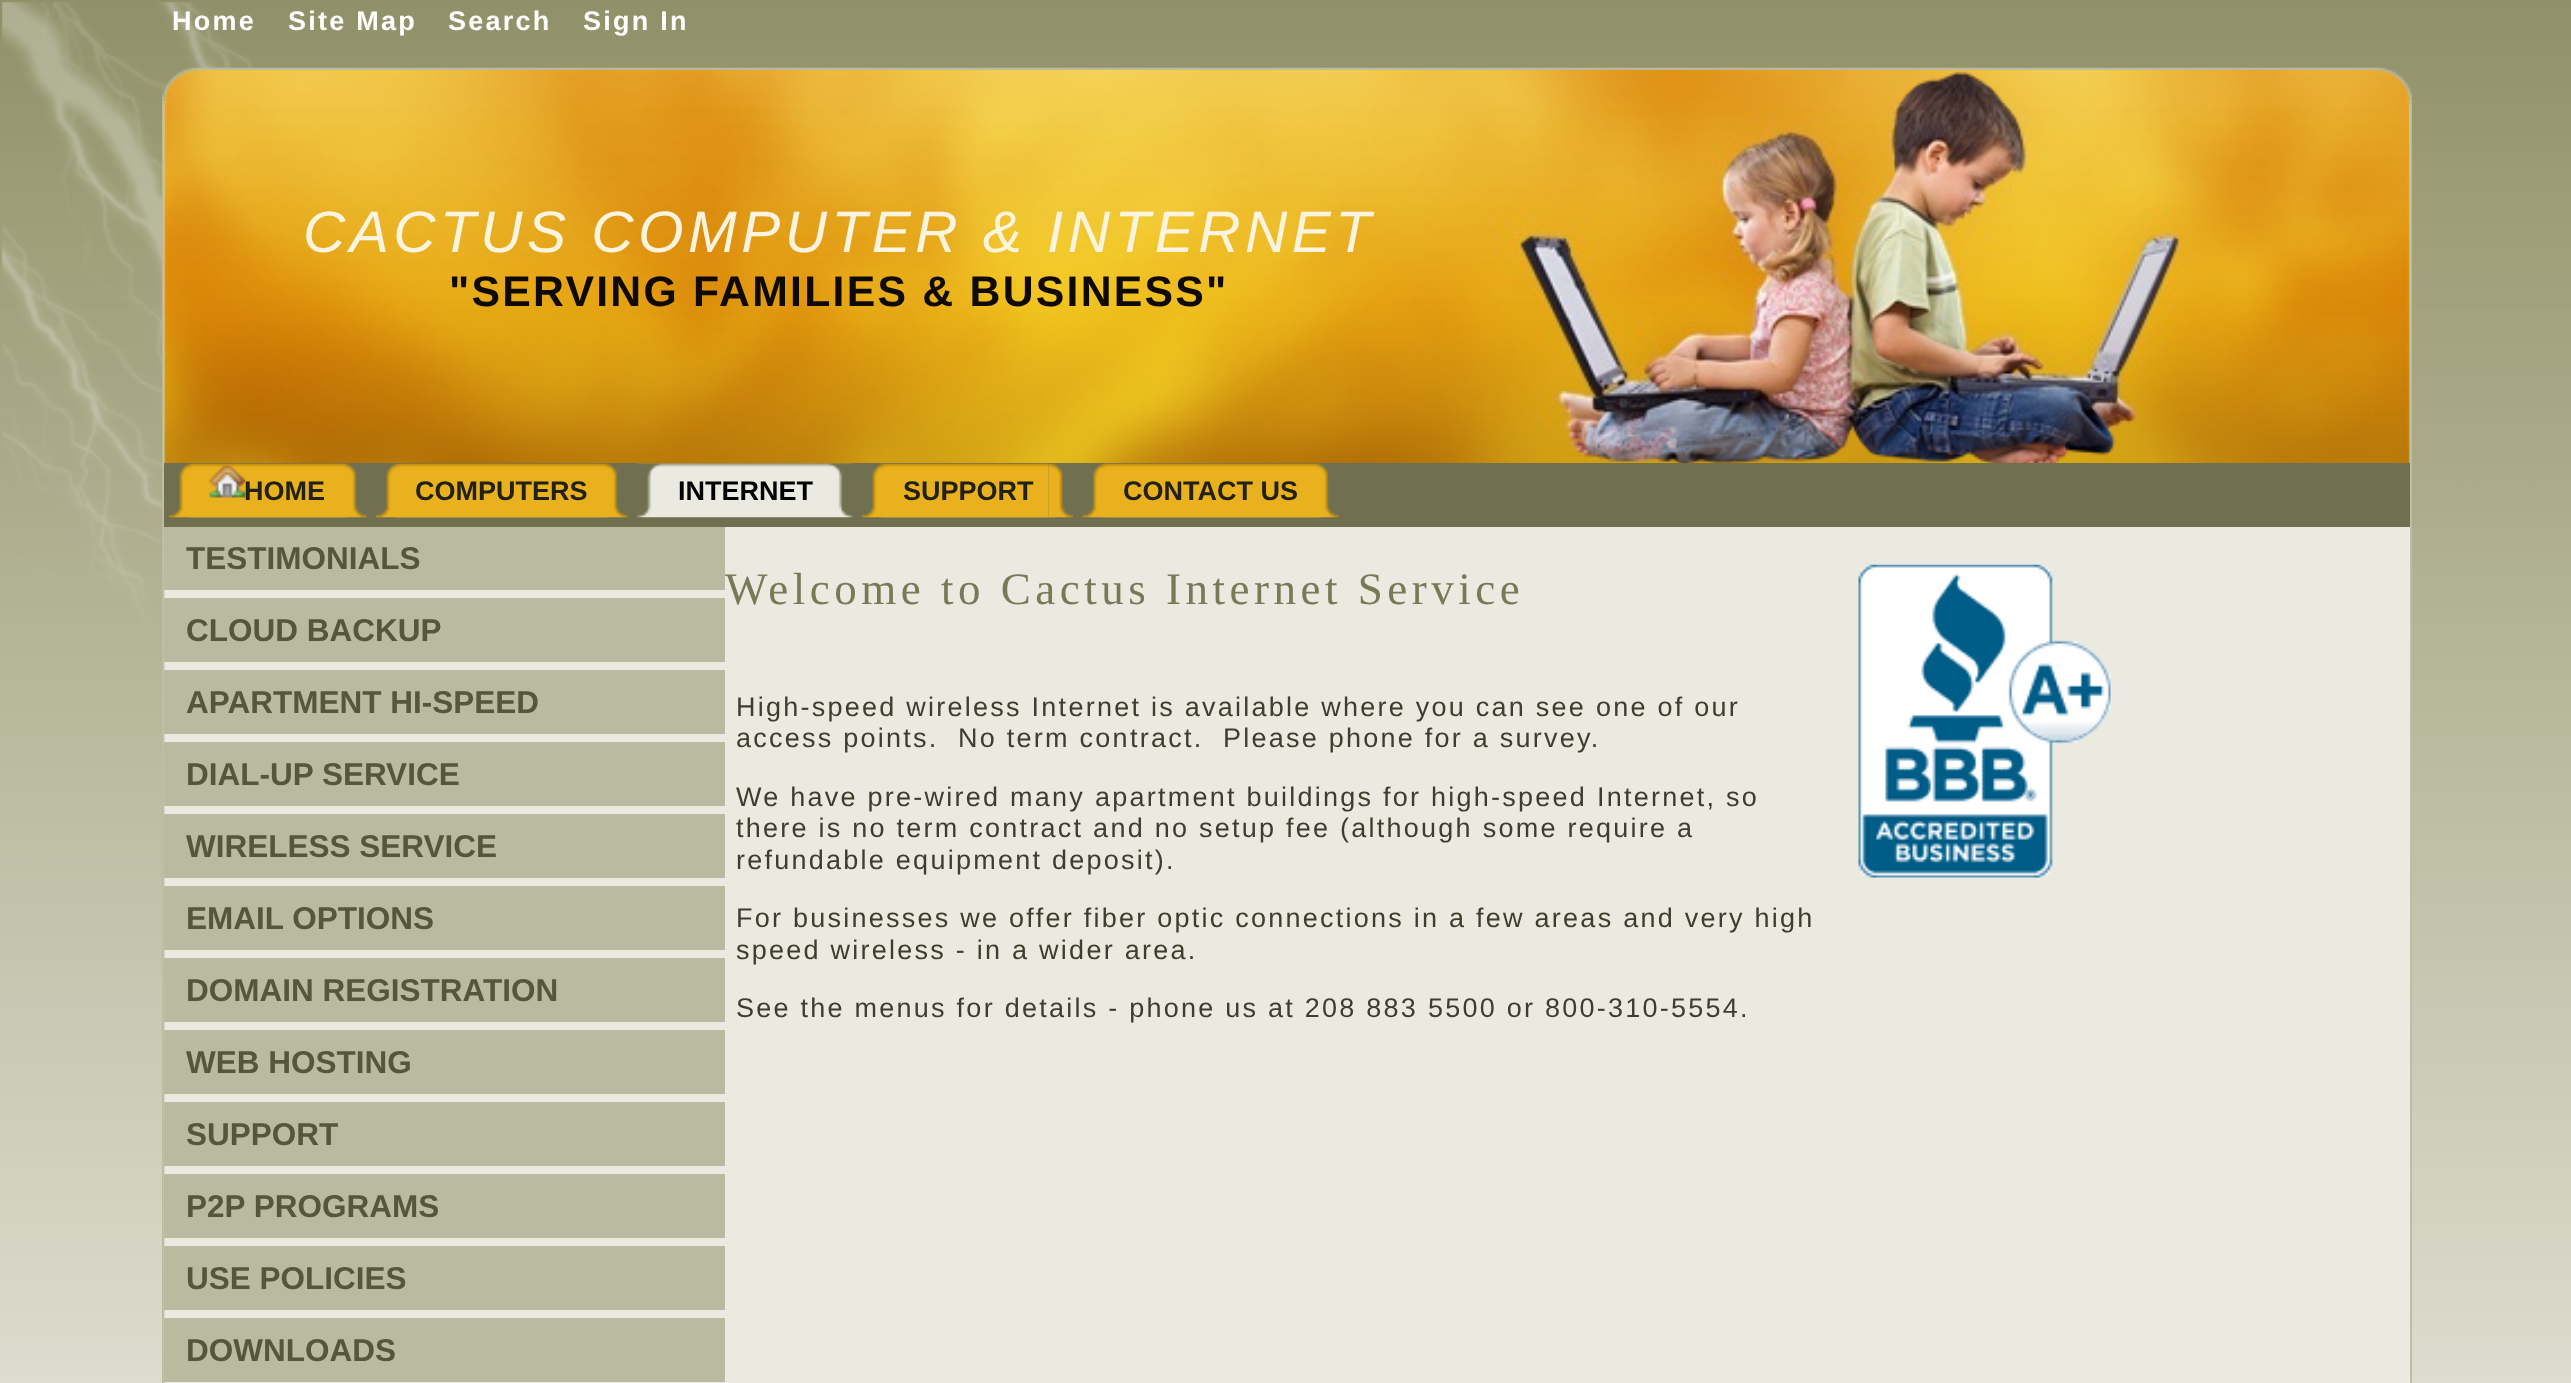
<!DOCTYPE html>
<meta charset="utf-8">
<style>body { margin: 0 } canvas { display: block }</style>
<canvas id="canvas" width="2571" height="1383"></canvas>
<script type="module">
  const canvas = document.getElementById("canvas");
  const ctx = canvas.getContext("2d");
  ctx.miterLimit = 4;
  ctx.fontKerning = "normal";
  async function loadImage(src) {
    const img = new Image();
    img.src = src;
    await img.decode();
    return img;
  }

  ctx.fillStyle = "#ffffff";
  ctx.fillRect(0, 0, 2571, 1383);
  ctx.drawImage(await loadImage("img1.png"), 0, 0, 2571, 1383);
  ctx.drawImage(await loadImage("img2.png"), 2, 2, 253, 627);
  ctx.letterSpacing = "2.25px";
  ctx.font = "bold 27px Liberation Sans";
  ctx.fillText("Home", 172, 30);
  ctx.fillText("Site Map", 288, 30);
  ctx.fillText("Search", 448, 30);
  ctx.fillText("Sign In", 583, 30);
  ctx.drawImage(await loadImage("img3.png"), 162, 67, 36, 37);
  ctx.drawImage(await loadImage("img4.png"), 198, 67, 2178, 6);
  ctx.drawImage(await loadImage("img5.png"), 2376, 67, 36, 37);
  ctx.drawImage(await loadImage("img6.png"), 162, 103, 36, 1280);
  ctx.drawImage(await loadImage("img19.png"), 2409, 103, 3, 1280);
  ctx.drawImage(await loadImage("img7.png"), 164, 69, 2246, 394);
  ctx.drawImage(await loadImage("img8.png"), 202, 103, 2170, 327);
  ctx.letterSpacing = "4.5px";
  ctx.font = "italic 58.5px Liberation Sans";
  ctx.fillStyle = "#fcf4de";
  ctx.fillText("CACTUS COMPUTER & INTERNET", 303, 252);
  ctx.letterSpacing = "2.25px";
  ctx.font = "bold 42.75px Liberation Sans";
  ctx.fillStyle = "#0e0a01";
  ctx.fillText("\"SERVING FAMILIES & BUSINESS\"", 449, 306);
  ctx.fillStyle = "#707051";
  ctx.fillRect(164, 463, 2246, 64);
  ctx.drawImage(await loadImage("img9.png"), 168, 463, 174, 55);
  ctx.drawImage(await loadImage("img10.png"), 342, 463, 25, 55);
  ctx.drawImage(await loadImage("img11.png"), 209, 465, 37, 33);
  ctx.letterSpacing = "0px";
  ctx.font = "bold 27px Liberation Sans";
  ctx.fillStyle = "#212118";
  ctx.fillText("HOME", 244, 500);
  ctx.drawImage(await loadImage("img12.png"), 375, 463, 228, 55);
  ctx.drawImage(await loadImage("img10.png"), 603, 463, 25, 55);
  ctx.fillText("COMPUTERS", 415, 500);
  ctx.drawImage(await loadImage("img13.png"), 637, 463, 191, 55);
  ctx.drawImage(await loadImage("img14.png"), 828, 463, 25, 55);
  ctx.fillStyle = "#000000";
  ctx.fillText("INTERNET", 678, 500);
  ctx.drawImage(await loadImage("img15.png"), 861, 463, 188, 55);
  ctx.drawImage(await loadImage("img16.png"), 1048, 463, 26, 55);
  ctx.fillStyle = "#212118";
  ctx.fillText("SUPPORT", 903, 500);
  ctx.drawImage(await loadImage("img17.png"), 1082, 463, 232, 55);
  ctx.drawImage(await loadImage("img10.png"), 1314, 463, 25, 55);
  ctx.fillText("CONTACT US", 1123, 500);
  ctx.fillStyle = "#eaeae1";
  ctx.fillRect(198, 527, 2212, 856);
  ctx.letterSpacing = "4.5px";
  ctx.font = "45px Liberation Serif";
  ctx.fillStyle = "#797958";
  ctx.fillText("Welcome to Cactus Internet Service", 725, 604);
  ctx.fillStyle = "#babaa0";
  ctx.fillRect(164, 527, 561, 63);
  ctx.letterSpacing = "0px";
  ctx.font = "bold 31.5px Liberation Sans";
  ctx.fillStyle = "#56563e";
  ctx.fillText("TESTIMONIALS", 186, 569);
  ctx.fillStyle = "#babaa0";
  ctx.fillRect(164, 598, 561, 64);
  ctx.fillStyle = "#56563e";
  ctx.fillText("CLOUD BACKUP", 186, 641);
  ctx.fillStyle = "#babaa0";
  ctx.fillRect(164, 670, 561, 64);
  ctx.fillStyle = "#56563e";
  ctx.fillText("APARTMENT HI-SPEED", 186, 713);
  ctx.fillStyle = "#babaa0";
  ctx.fillRect(164, 742, 561, 64);
  ctx.fillStyle = "#56563e";
  ctx.fillText("DIAL-UP SERVICE", 186, 785);
  ctx.fillStyle = "#babaa0";
  ctx.fillRect(164, 814, 561, 64);
  ctx.fillStyle = "#56563e";
  ctx.fillText("WIRELESS SERVICE", 186, 857);
  ctx.fillStyle = "#babaa0";
  ctx.fillRect(164, 886, 561, 64);
  ctx.fillStyle = "#56563e";
  ctx.fillText("EMAIL OPTIONS", 186, 929);
  ctx.fillStyle = "#babaa0";
  ctx.fillRect(164, 958, 561, 64);
  ctx.fillStyle = "#56563e";
  ctx.fillText("DOMAIN REGISTRATION", 186, 1001);
  ctx.fillStyle = "#babaa0";
  ctx.fillRect(164, 1030, 561, 64);
  ctx.fillStyle = "#56563e";
  ctx.fillText("WEB HOSTING", 186, 1073);
  ctx.fillStyle = "#babaa0";
  ctx.fillRect(164, 1102, 561, 64);
  ctx.fillStyle = "#56563e";
  ctx.fillText("SUPPORT", 186, 1145);
  ctx.fillStyle = "#babaa0";
  ctx.fillRect(164, 1174, 561, 64);
  ctx.fillStyle = "#56563e";
  ctx.fillText("P2P PROGRAMS", 186, 1217);
  ctx.fillStyle = "#babaa0";
  ctx.fillRect(164, 1246, 561, 64);
  ctx.fillStyle = "#56563e";
  ctx.fillText("USE POLICIES", 186, 1289);
  ctx.fillStyle = "#babaa0";
  ctx.fillRect(164, 1318, 561, 64);
  ctx.fillStyle = "#56563e";
  ctx.fillText("DOWNLOADS", 186, 1361);
  ctx.letterSpacing = "2.25px";
  ctx.font = "27px Liberation Sans";
  ctx.fillStyle = "#3e3e2d";
  ctx.fillText("High-speed wireless Internet is available where you can see one of our", 736, 716);
  ctx.fillText("access points.  No term contract.  Please phone for a survey.", 736, 747);
  ctx.fillText("We have pre-wired many apartment buildings for high-speed Internet, so", 736, 806);
  ctx.fillText("there is no term contract and no setup fee (although some require a", 736, 837);
  ctx.fillText("refundable equipment deposit).", 736, 869);
  ctx.fillText("For businesses we offer fiber optic connections in a few areas and very high", 736, 927);
  ctx.fillText("speed wireless - in a wider area.", 736, 959);
  ctx.fillText("See the menus for details - phone us at 208 883 5500 or 800-310-5554.", 736, 1017);
  ctx.drawImage(await loadImage("img18.png"), 1858, 564, 253, 314);
</script>
